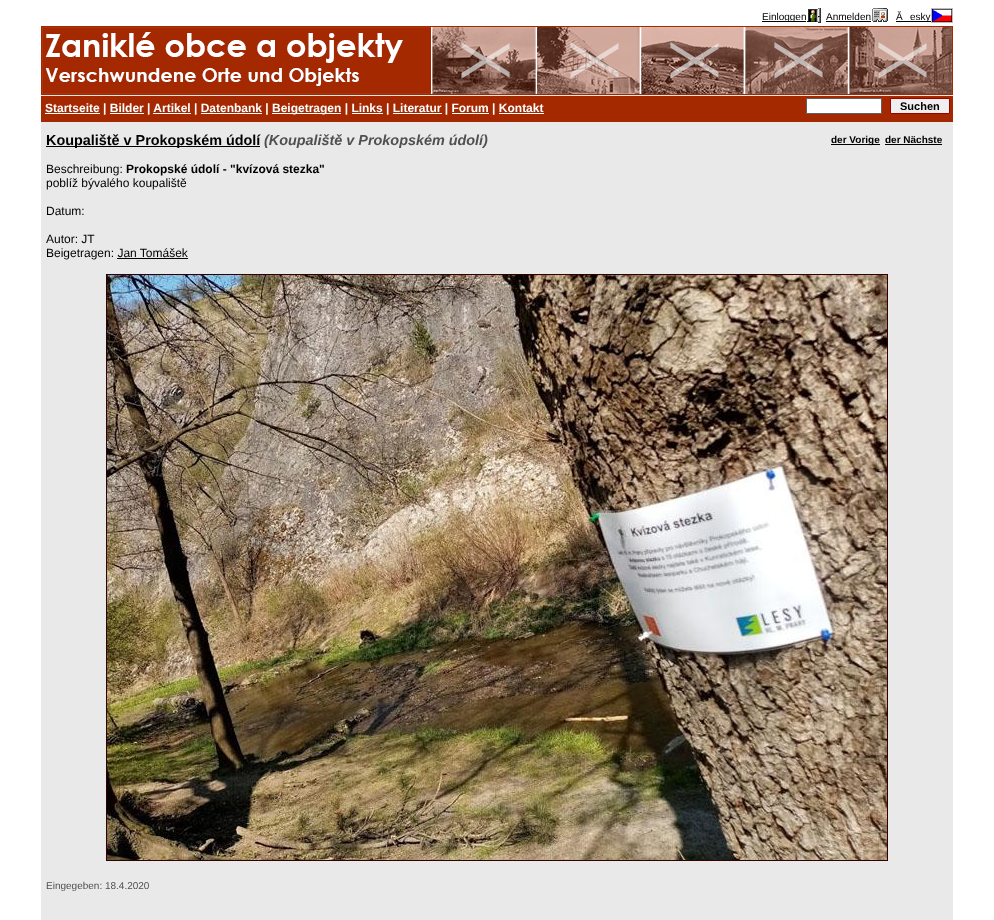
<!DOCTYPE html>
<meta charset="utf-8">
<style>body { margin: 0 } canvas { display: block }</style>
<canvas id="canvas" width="994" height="920"></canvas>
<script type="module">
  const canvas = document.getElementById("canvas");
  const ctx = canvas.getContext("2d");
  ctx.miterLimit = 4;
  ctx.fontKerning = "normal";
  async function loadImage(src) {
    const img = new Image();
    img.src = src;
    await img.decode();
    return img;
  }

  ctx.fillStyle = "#ffffff";
  ctx.fillRect(0, 0, 994, 920);
  ctx.fillStyle = "#e9e9e9";
  ctx.fillRect(41, 95, 912, 825);
  ctx.fillStyle = "#000000";
  ctx.fillRect(762, 21, 44, 1);
  ctx.font = "10px Liberation Sans";
  ctx.fillText("Einloggen", 762, 20);
  ctx.drawImage(await loadImage("img1.png"), 807, 8, 14, 15);
  ctx.fillText("Anmelden", 826, 20);
  ctx.fillRect(826, 21, 45, 1);
  ctx.drawImage(await loadImage("img2.png"), 872, 8, 16, 14);
  ctx.fillText("Ă", 896, 20);
  ctx.fillRect(896, 21, 35, 1);
  ctx.fillText("esky", 910, 20);
  ctx.drawImage(await loadImage("img3.png"), 931, 8, 22, 15);
  ctx.drawImage(await loadImage("img4.png"), 42, 27, 910, 67);
  ctx.strokeStyle = "#a42900";
  ctx.strokeRect(41.5, 26.5, 911, 68);
  ctx.fillStyle = "#a42900";
  ctx.fillRect(41, 96, 912, 26);
  ctx.fillStyle = "#ffffff";
  ctx.fillRect(45, 113, 55, 1);
  ctx.font = "bold 12px Liberation Sans";
  ctx.fillText("Startseite | Bilder | Artikel | Datenbank |", 45, 112);
  ctx.fillRect(272, 113, 69, 1);
  ctx.fillText("Beigetragen | Links | Literatur | Forum | Kontakt", 272, 112);
  ctx.fillRect(110, 113, 34, 1);
  ctx.fillRect(153, 113, 38, 1);
  ctx.fillRect(201, 113, 61, 1);
  ctx.fillRect(352, 113, 31, 1);
  ctx.fillRect(393, 113, 49, 1);
  ctx.fillRect(452, 113, 37, 1);
  ctx.fillRect(499, 113, 45, 1);
  ctx.beginPath();
  ctx.rect(806.5, 98.5, 75, 15);
  ctx.fill();
  ctx.strokeStyle = "#606060";
  ctx.stroke();
  ctx.fillStyle = "#efefef";
  ctx.beginPath();
  ctx.rect(890.5, 98.5, 59, 15);
  ctx.fill();
  ctx.strokeStyle = "#a00000";
  ctx.stroke();
  ctx.font = "bold 11px Liberation Sans";
  ctx.fillStyle = "#000000";
  ctx.fillText("Suchen", 900, 110);
  ctx.fillRect(46, 146, 214, 1);
  ctx.font = "bold 14.4px Liberation Sans";
  ctx.fillText("Koupaliště v Prokopském údolí", 46, 145);
  ctx.font = "italic bold 14.4px Liberation Sans";
  ctx.fillStyle = "#505050";
  ctx.fillText("(Koupaliště v Prokopském údolí)", 264, 145);
  ctx.fillStyle = "#000000";
  ctx.fillRect(831, 144, 49, 1);
  ctx.font = "bold 10px Liberation Sans";
  ctx.fillText("der Vorige", 831, 143);
  ctx.fillText("der Nächste", 885, 143);
  ctx.fillRect(885, 144, 57, 1);
  ctx.font = "12px Liberation Sans";
  ctx.fillText("Beschreibung:", 46, 173);
  ctx.font = "bold 12px Liberation Sans";
  ctx.fillText("Prokopské údolí - \"kvízová stezka\"", 126, 173);
  ctx.font = "12px Liberation Sans";
  ctx.fillText("poblíž bývalého koupaliště", 46, 187);
  ctx.fillText("Datum:", 46, 215);
  ctx.fillText("Autor: JT", 46, 243);
  ctx.fillText("Beigetragen: Jan Tomášek", 46, 257);
  ctx.fillRect(117, 258, 71, 1);
  ctx.strokeStyle = "#330000";
  ctx.strokeRect(106.5, 274.5, 781, 586);
  ctx.drawImage(await loadImage("img5.png"), 107, 275, 780, 585);
  ctx.font = "10px Liberation Sans";
  ctx.fillStyle = "#505050";
  ctx.fillText("Eingegeben: 18.4.2020", 46, 889);
</script>
